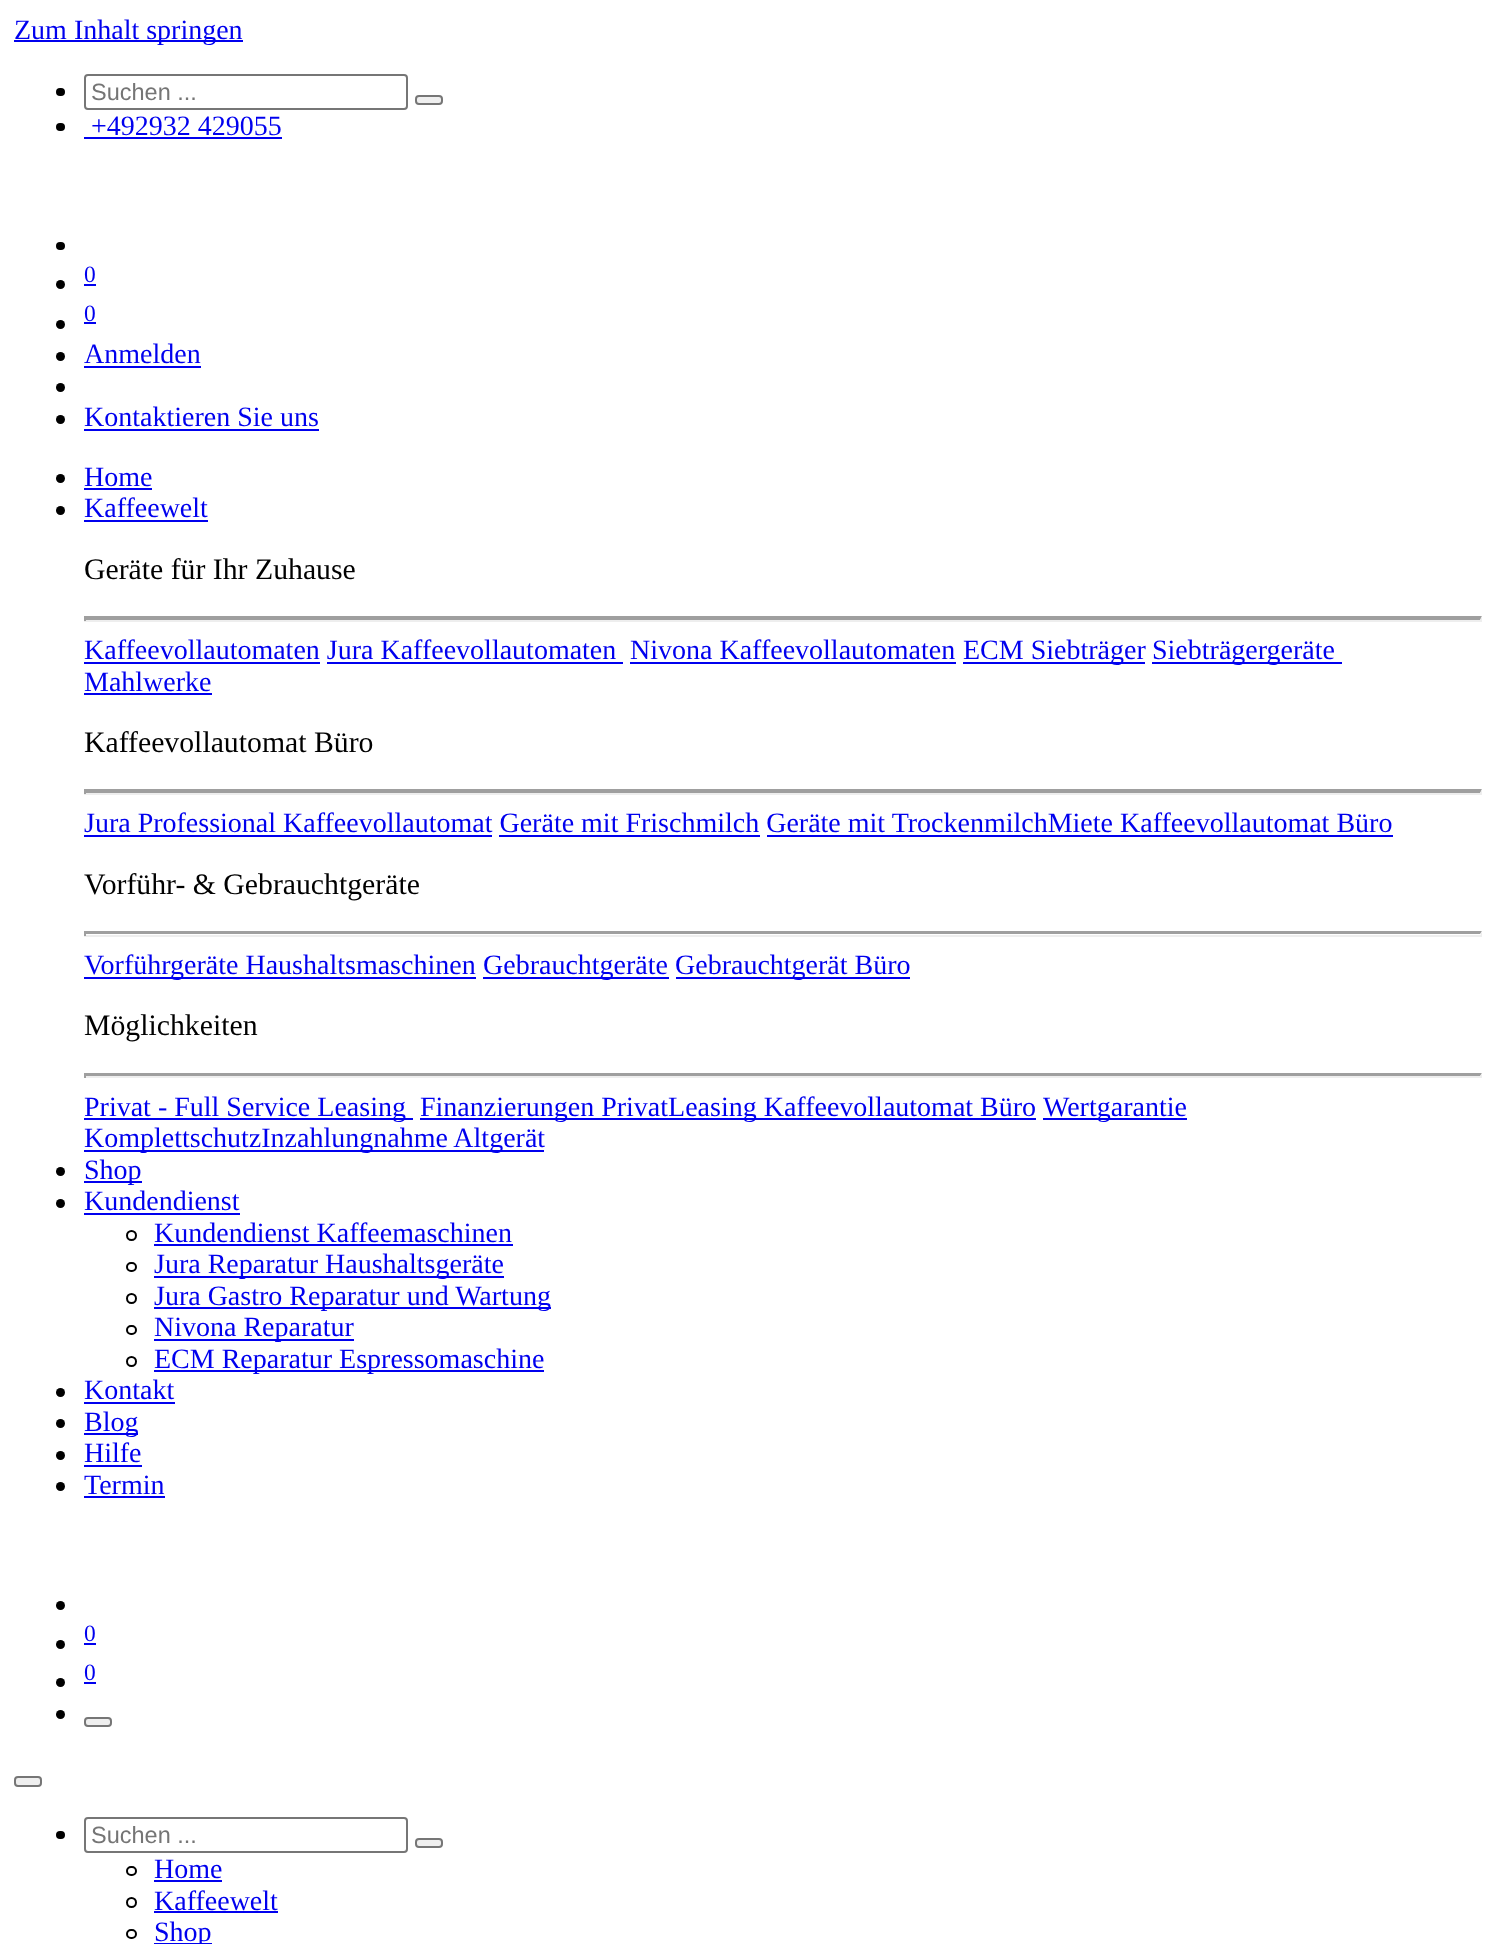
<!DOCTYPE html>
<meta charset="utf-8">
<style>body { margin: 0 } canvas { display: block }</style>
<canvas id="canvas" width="1496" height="1944"></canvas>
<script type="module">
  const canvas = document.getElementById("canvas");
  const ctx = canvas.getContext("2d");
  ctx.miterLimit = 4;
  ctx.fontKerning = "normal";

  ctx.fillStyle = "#ffffff";
  ctx.fillRect(0, 0, 1496, 1944);
  ctx.fillStyle = "#0000ee";
  ctx.fillRect(14, 40, 229, 2);
  ctx.font = "28px Liberation Serif";
  ctx.fillText("Zum Inhalt springen", 14, 39);
  ctx.fillStyle = "#000000";
  ctx.beginPath();
  ctx.roundRect(56, 88, 9, 8, 4);
  ctx.fill();
  ctx.beginPath();
  ctx.roundRect(85, 75, 322, 34, 3);
  ctx.strokeStyle = "#767676";
  ctx.lineWidth = 2;
  ctx.stroke();
  ctx.font = "23.5px Liberation Sans";
  ctx.fillStyle = "#757575";
  ctx.fillText("Suchen ...", 91, 100);
  ctx.fillStyle = "#efefef";
  ctx.beginPath();
  ctx.roundRect(416, 96, 26, 8, 3);
  ctx.fill();
  ctx.stroke();
  ctx.fillStyle = "#000000";
  ctx.beginPath();
  ctx.roundRect(56, 123, 9, 8, 4);
  ctx.fill();
  ctx.font = "28px Liberation Serif";
  ctx.fillStyle = "#0000ee";
  ctx.fillText("+492932 429055", 91, 135);
  ctx.fillRect(84, 137, 198, 2);
  ctx.fillStyle = "#000000";
  ctx.beginPath();
  ctx.roundRect(56, 242, 9, 8, 4);
  ctx.fill();
  ctx.font = "23.5px Liberation Serif";
  ctx.fillStyle = "#0000ee";
  ctx.fillText("0", 84, 282);
  ctx.fillRect(84, 284, 12, 2);
  ctx.fillStyle = "#000000";
  ctx.beginPath();
  ctx.arc(60.5, 284.5, 4.5, 0, Math.PI * 2);
  ctx.fill();
  ctx.fillStyle = "#0000ee";
  ctx.fillText("0", 84, 321);
  ctx.fillRect(84, 322, 12, 2);
  ctx.fillStyle = "#000000";
  ctx.beginPath();
  ctx.arc(60.5, 324.5, 4.5, 0, Math.PI * 2);
  ctx.fill();
  ctx.beginPath();
  ctx.arc(60.5, 356.5, 4.5, 0, Math.PI * 2);
  ctx.fill();
  ctx.font = "28px Liberation Serif";
  ctx.fillStyle = "#0000ee";
  ctx.fillText("Anmelden", 84, 363);
  ctx.fillRect(84, 366, 117, 2);
  ctx.fillStyle = "#000000";
  ctx.beginPath();
  ctx.arc(60.5, 387.5, 4.5, 0, Math.PI * 2);
  ctx.fill();
  ctx.beginPath();
  ctx.arc(60.5, 419.5, 4.5, 0, Math.PI * 2);
  ctx.fill();
  ctx.fillStyle = "#0000ee";
  ctx.fillText("Kontaktieren Sie uns", 84, 426);
  ctx.fillRect(84, 429, 235, 2);
  ctx.fillStyle = "#000000";
  ctx.beginPath();
  ctx.arc(60.5, 478.5, 4.5, 0, Math.PI * 2);
  ctx.fill();
  ctx.fillStyle = "#0000ee";
  ctx.fillText("Home", 84, 486);
  ctx.fillRect(84, 488, 68, 2);
  ctx.fillStyle = "#000000";
  ctx.beginPath();
  ctx.arc(60.5, 510.5, 4.5, 0, Math.PI * 2);
  ctx.fill();
  ctx.fillStyle = "#0000ee";
  ctx.fillText("Kaffeewelt", 84, 517);
  ctx.fillRect(84, 520, 124, 2);
  ctx.font = "29.75px Liberation Serif";
  ctx.fillStyle = "#000000";
  ctx.fillText("Geräte für Ihr Zuhause", 84, 579);
  ctx.fillStyle = "#9f9f9f";
  ctx.beginPath();
  ctx.moveTo(84, 616);
  ctx.lineTo(1482, 616);
  ctx.lineTo(1480, 620);
  ctx.lineTo(86, 620);
  ctx.closePath();
  ctx.fill();
  ctx.fillStyle = "#eeeeee";
  ctx.beginPath();
  ctx.moveTo(1482, 616);
  ctx.lineTo(1482, 621);
  ctx.lineTo(1480.5, 619.5);
  ctx.closePath();
  ctx.fill();
  ctx.fillRect(84, 620, 1398, 2);
  ctx.fillStyle = "#9f9f9f";
  ctx.fillRect(84, 616, 2, 5);
  ctx.font = "28px Liberation Serif";
  ctx.fillStyle = "#0000ee";
  ctx.fillText("Kaffeevollautomaten Jura Kaffeevollautomaten", 84, 659);
  ctx.fillRect(84, 662, 236, 2);
  ctx.fillText("Nivona Kaffeevollautomaten", 630, 659);
  ctx.fillRect(630, 662, 326, 2);
  ctx.fillRect(963, 662, 182, 2);
  ctx.fillText("ECM Siebträger", 963, 659);
  ctx.fillRect(1152, 662, 190, 2);
  ctx.fillText("Siebträgergeräte", 1152, 659);
  ctx.fillRect(327, 662, 296, 2);
  ctx.fillText("Mahlwerke", 84, 691);
  ctx.fillRect(84, 693, 128, 2);
  ctx.font = "29.75px Liberation Serif";
  ctx.fillStyle = "#000000";
  ctx.fillText("Kaffeevollautomat Büro", 84, 752);
  ctx.fillStyle = "#9f9f9f";
  ctx.beginPath();
  ctx.moveTo(84, 789);
  ctx.lineTo(1482, 789);
  ctx.lineTo(1480, 793);
  ctx.lineTo(86, 793);
  ctx.closePath();
  ctx.fill();
  ctx.fillStyle = "#eeeeee";
  ctx.beginPath();
  ctx.moveTo(1482, 789);
  ctx.lineTo(1482, 794.5);
  ctx.lineTo(1480.5, 793);
  ctx.closePath();
  ctx.fill();
  ctx.fillRect(84, 793, 1398, 2);
  ctx.fillStyle = "#9f9f9f";
  ctx.fillRect(84, 789, 2, 5);
  ctx.font = "28px Liberation Serif";
  ctx.fillStyle = "#0000ee";
  ctx.fillText("Jura Professional Kaffeevollautomat Geräte mit Frischmilch Geräte mit TrockenmilchMiete Kaffeevollautomat Büro", 84, 832);
  ctx.fillRect(84, 835, 408, 2);
  ctx.fillRect(499, 835, 261, 2);
  ctx.fillRect(767, 835, 626, 2);
  ctx.font = "29.75px Liberation Serif";
  ctx.fillStyle = "#000000";
  ctx.fillText("Vorführ- & Gebrauchtgeräte", 84, 894);
  ctx.fillStyle = "#9f9f9f";
  ctx.beginPath();
  ctx.moveTo(84, 931);
  ctx.lineTo(1482, 931);
  ctx.lineTo(1480, 934);
  ctx.lineTo(86, 934);
  ctx.closePath();
  ctx.fill();
  ctx.fillStyle = "#eeeeee";
  ctx.beginPath();
  ctx.moveTo(1482, 931);
  ctx.lineTo(1482, 936);
  ctx.lineTo(1480.5, 934.5);
  ctx.closePath();
  ctx.fill();
  ctx.fillRect(84, 935, 1398, 2);
  ctx.fillStyle = "#9f9f9f";
  ctx.fillRect(84, 931, 2, 5);
  ctx.fillStyle = "#0000ee";
  ctx.fillRect(84, 977, 392, 2);
  ctx.font = "28px Liberation Serif";
  ctx.fillText("Vorführgeräte Haushaltsmaschinen", 84, 974);
  ctx.fillRect(483, 977, 186, 2);
  ctx.fillText("Gebrauchtgeräte", 483, 974);
  ctx.fillRect(676, 977, 234, 2);
  ctx.fillText("Gebrauchtgerät Büro", 675, 974);
  ctx.font = "29.75px Liberation Serif";
  ctx.fillStyle = "#000000";
  ctx.fillText("Möglichkeiten", 84, 1035);
  ctx.fillStyle = "#9f9f9f";
  ctx.beginPath();
  ctx.moveTo(84, 1073);
  ctx.lineTo(1482, 1073);
  ctx.lineTo(1480, 1076);
  ctx.lineTo(86, 1076);
  ctx.closePath();
  ctx.fill();
  ctx.fillStyle = "#eeeeee";
  ctx.beginPath();
  ctx.moveTo(1482, 1073);
  ctx.lineTo(1482, 1078);
  ctx.lineTo(1480.5, 1076);
  ctx.closePath();
  ctx.fill();
  ctx.fillRect(84, 1076, 1398, 2);
  ctx.fillStyle = "#9f9f9f";
  ctx.fillRect(84, 1073, 2, 5);
  ctx.fillStyle = "#0000ee";
  ctx.fillRect(84, 1118, 329, 2);
  ctx.font = "28px Liberation Serif";
  ctx.fillText("Privat - Full Service Leasing", 84, 1116);
  ctx.fillRect(420, 1118, 616, 2);
  ctx.fillText("Finanzierungen PrivatLeasing Kaffeevollautomat Büro", 420, 1116);
  ctx.fillRect(1043, 1118, 144, 2);
  ctx.fillText("Wertgarantie", 1043, 1116);
  ctx.fillRect(84, 1150, 460, 2);
  ctx.fillText("KomplettschutzInzahlungnahme Altgerät", 84, 1147);
  ctx.fillStyle = "#000000";
  ctx.beginPath();
  ctx.arc(60.5, 1171.5, 4.5, 0, Math.PI * 2);
  ctx.fill();
  ctx.fillStyle = "#0000ee";
  ctx.fillRect(84, 1181, 58, 2);
  ctx.fillText("Shop", 84, 1179);
  ctx.fillStyle = "#000000";
  ctx.beginPath();
  ctx.arc(60.5, 1203.5, 4.5, 0, Math.PI * 2);
  ctx.fill();
  ctx.fillStyle = "#0000ee";
  ctx.fillText("Kundendienst", 84, 1210);
  ctx.fillRect(84, 1213, 156, 2);
  ctx.beginPath();
  ctx.arc(131.5, 1235.5, 4.5, 0, Math.PI * 2);
  ctx.strokeStyle = "#000000";
  ctx.stroke();
  ctx.fillText("Kundendienst Kaffeemaschinen", 154, 1242);
  ctx.fillRect(154, 1244, 359, 2);
  ctx.beginPath();
  ctx.roundRect(127, 1263, 9, 8, 4);
  ctx.stroke();
  ctx.fillRect(154, 1276, 350, 2);
  ctx.fillText("Jura Reparatur Haushaltsgeräte", 154, 1273);
  ctx.beginPath();
  ctx.arc(131.5, 1298.5, 4.5, 0, Math.PI * 2);
  ctx.stroke();
  ctx.fillRect(154, 1307, 397, 2);
  ctx.fillText("Jura Gastro Reparatur und Wartung", 154, 1305);
  ctx.beginPath();
  ctx.roundRect(127, 1326, 9, 8, 4);
  ctx.stroke();
  ctx.fillRect(154, 1339, 200, 2);
  ctx.fillText("Nivona Reparatur", 154, 1336);
  ctx.beginPath();
  ctx.arc(131.5, 1361.5, 4.5, 0, Math.PI * 2);
  ctx.stroke();
  ctx.fillRect(154, 1370, 390, 2);
  ctx.fillText("ECM Reparatur Espressomaschine", 154, 1368);
  ctx.fillStyle = "#000000";
  ctx.beginPath();
  ctx.arc(60.5, 1392.5, 4.5, 0, Math.PI * 2);
  ctx.fill();
  ctx.fillStyle = "#0000ee";
  ctx.fillText("Kontakt", 84, 1399);
  ctx.fillRect(84, 1402, 91, 2);
  ctx.fillStyle = "#000000";
  ctx.beginPath();
  ctx.arc(60.5, 1423.5, 4.5, 0, Math.PI * 2);
  ctx.fill();
  ctx.fillStyle = "#0000ee";
  ctx.fillRect(84, 1433, 54, 2);
  ctx.fillText("Blog", 84, 1431);
  ctx.fillStyle = "#000000";
  ctx.beginPath();
  ctx.arc(60.5, 1455.5, 4.5, 0, Math.PI * 2);
  ctx.fill();
  ctx.fillStyle = "#0000ee";
  ctx.fillText("Hilfe", 84, 1462);
  ctx.fillRect(84, 1465, 58, 2);
  ctx.fillStyle = "#000000";
  ctx.beginPath();
  ctx.arc(60.5, 1486.5, 4.5, 0, Math.PI * 2);
  ctx.fill();
  ctx.fillStyle = "#0000ee";
  ctx.fillText("Termin", 84, 1494);
  ctx.fillRect(84, 1496, 81, 2);
  ctx.fillStyle = "#000000";
  ctx.beginPath();
  ctx.arc(60.5, 1605.5, 4.5, 0, Math.PI * 2);
  ctx.fill();
  ctx.font = "23.5px Liberation Serif";
  ctx.fillStyle = "#0000ee";
  ctx.fillText("0", 84, 1641);
  ctx.fillRect(84, 1643, 12, 2);
  ctx.fillStyle = "#000000";
  ctx.beginPath();
  ctx.arc(60.5, 1644.5, 4.5, 0, Math.PI * 2);
  ctx.fill();
  ctx.fillStyle = "#0000ee";
  ctx.fillText("0", 84, 1680);
  ctx.fillRect(84, 1682, 12, 2);
  ctx.fillStyle = "#000000";
  ctx.beginPath();
  ctx.arc(60.5, 1682.5, 4.5, 0, Math.PI * 2);
  ctx.fill();
  ctx.beginPath();
  ctx.arc(60.5, 1714.5, 4.5, 0, Math.PI * 2);
  ctx.fill();
  ctx.fillStyle = "#efefef";
  ctx.beginPath();
  ctx.roundRect(85, 1718, 26, 8, 3);
  ctx.fill();
  ctx.strokeStyle = "#767676";
  ctx.stroke();
  ctx.beginPath();
  ctx.roundRect(15, 1777, 26, 9, 3);
  ctx.fill();
  ctx.stroke();
  ctx.fillStyle = "#000000";
  ctx.beginPath();
  ctx.roundRect(56, 1831, 9, 8, 4);
  ctx.fill();
  ctx.beginPath();
  ctx.roundRect(85, 1818, 322, 34, 3);
  ctx.stroke();
  ctx.font = "23.5px Liberation Sans";
  ctx.fillStyle = "#757575";
  ctx.fillText("Suchen ...", 91, 1843);
  ctx.fillStyle = "#efefef";
  ctx.beginPath();
  ctx.roundRect(416, 1839, 26, 8, 3);
  ctx.fill();
  ctx.stroke();
  ctx.beginPath();
  ctx.roundRect(127, 1867, 9, 8, 4);
  ctx.strokeStyle = "#000000";
  ctx.stroke();
  ctx.font = "28px Liberation Serif";
  ctx.fillStyle = "#0000ee";
  ctx.fillText("Home", 154, 1878);
  ctx.fillRect(154, 1880, 68, 2);
  ctx.beginPath();
  ctx.arc(131.5, 1902.5, 4.5, 0, Math.PI * 2);
  ctx.stroke();
  ctx.fillText("Kaffeewelt", 154, 1910);
  ctx.fillRect(154, 1911, 124, 2);
  ctx.beginPath();
  ctx.roundRect(127, 1930, 9, 8, 4);
  ctx.stroke();
  ctx.fillRect(154, 1943, 58, 1);
  ctx.fillText("Shop", 154, 1941);
</script>
